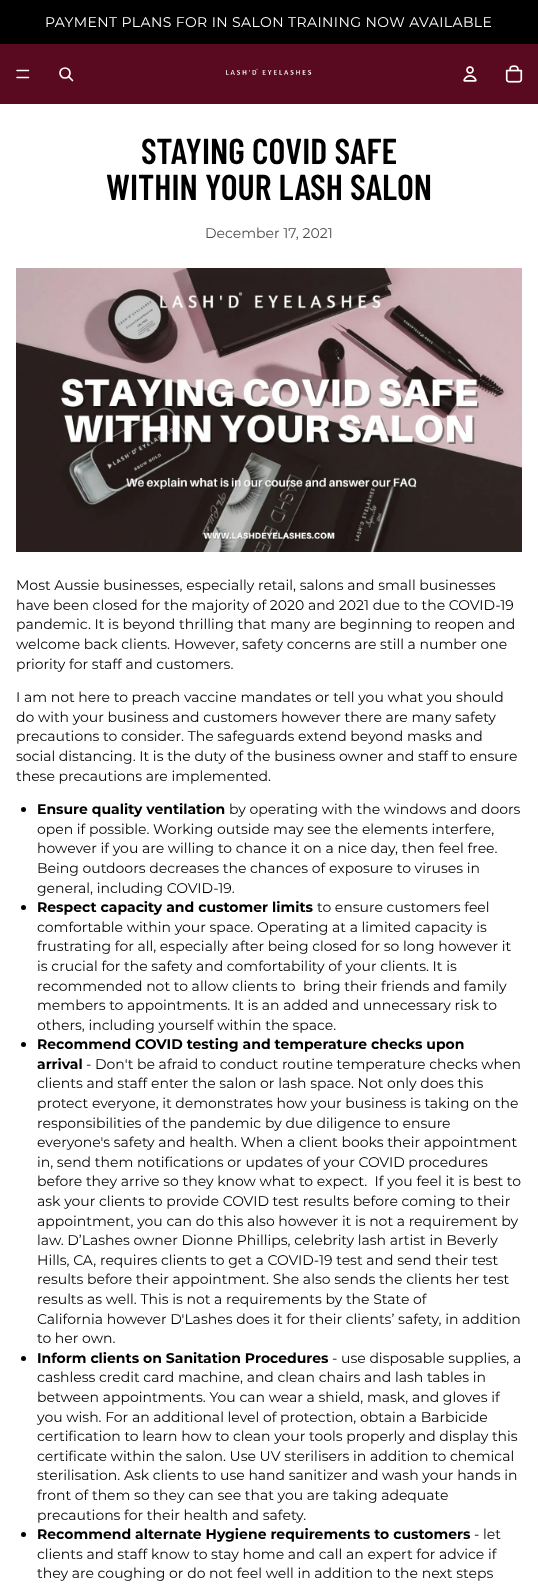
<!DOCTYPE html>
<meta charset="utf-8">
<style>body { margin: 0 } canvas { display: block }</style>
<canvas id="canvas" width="538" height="1594"></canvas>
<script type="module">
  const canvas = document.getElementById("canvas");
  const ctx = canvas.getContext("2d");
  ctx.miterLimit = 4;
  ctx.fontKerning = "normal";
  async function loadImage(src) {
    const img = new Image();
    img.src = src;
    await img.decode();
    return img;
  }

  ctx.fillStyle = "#ffffff";
  ctx.fillRect(0, 0, 538, 1594);
  ctx.fillStyle = "#000000";
  ctx.fillRect(0, 0, 538, 44);
  ctx.letterSpacing = "0.4px";
  ctx.font = "14px Montserrat";
  ctx.fillStyle = "#ffffff";
  ctx.fillText("PAYMENT PLANS FOR IN SALON TRAINING NOW AVAILABLE", 45, 27);
  ctx.fillStyle = "#590a20";
  ctx.fillRect(0, 44, 538, 60);
  ctx.beginPath();
  ctx.moveTo(17, 70.5);
  ctx.lineTo(28.5, 70.5);
  ctx.moveTo(17, 77.5);
  ctx.lineTo(28.5, 77.5);
  ctx.strokeStyle = "#ffffff";
  ctx.lineWidth = 1.5;
  ctx.lineCap = "round";
  ctx.stroke();
  ctx.beginPath();
  ctx.arc(65, 73, 5, 0, Math.PI * 2);
  ctx.lineWidth = 1.7;
  ctx.stroke();
  ctx.beginPath();
  ctx.moveTo(69, 77);
  ctx.lineTo(72.5, 80.5);
  ctx.lineJoin = "round";
  ctx.stroke();
  ctx.drawImage(await loadImage("img1.png"), 225, 68, 87, 7);
  ctx.drawImage(await loadImage("img2.png"), 463, 66, 14, 16);
  ctx.drawImage(await loadImage("img3.png"), 505, 65, 18, 18);
  ctx.letterSpacing = "0px";
  ctx.font = "600 36px Barlow Condensed";
  ctx.fillStyle = "#000000";
  ctx.fillText("STAYING COVID SAFE", 141, 164);
  ctx.fillText("WITHIN YOUR LASH SALON", 106, 200);
  ctx.font = "14px Montserrat";
  ctx.fillStyle = "#4d4d4d";
  ctx.fillText("December 17, 2021", 205, 238);
  ctx.drawImage(await loadImage("img4.png"), 16, 268, 506, 284);
  ctx.fillStyle = "#000000";
  ctx.fillText("Most Aussie businesses, especially retail, salons and small businesses", 16, 590);
  ctx.fillText("have been closed for the majority of 2020 and 2021 due to the COVID-19", 16, 610);
  ctx.fillText("pandemic. It is beyond thrilling that many are beginning to reopen and", 16, 629);
  ctx.fillText("welcome back clients. However, safety concerns are still a number one", 16, 649);
  ctx.fillText("priority for staff and customers.", 16, 669);
  ctx.fillText("I am not here to preach vaccine mandates or tell you what you should", 16, 702);
  ctx.fillText("do with your business and customers however there are many safety", 16, 722);
  ctx.fillText("precautions to consider. The safeguards extend beyond masks and", 16, 741);
  ctx.fillText("social distancing. It is the duty of the business owner and staff to ensure", 16, 761);
  ctx.fillText("these precautions are implemented.", 16, 781);
  ctx.beginPath();
  ctx.arc(23.5, 809.5, 2.5, 0, Math.PI * 2);
  ctx.fill();
  ctx.font = "bold 14px Montserrat";
  ctx.fillText("Ensure quality ventilation", 37, 814);
  ctx.font = "14px Montserrat";
  ctx.fillText("by operating with the windows and doors", 229, 814);
  ctx.fillText("open if possible. Working outside may see the elements interfere,", 37, 834);
  ctx.fillText("however if you are willing to chance it on a nice day, then feel free.", 37, 853);
  ctx.fillText("Being outdoors decreases the chances of exposure to viruses in", 37, 873);
  ctx.fillText("general, including COVID-19.", 37, 893);
  ctx.beginPath();
  ctx.arc(23.5, 907.5, 2.5, 0, Math.PI * 2);
  ctx.fill();
  ctx.font = "bold 14px Montserrat";
  ctx.fillText("Respect capacity and customer limits", 37, 912);
  ctx.font = "14px Montserrat";
  ctx.fillText("to ensure customers feel", 317, 912);
  ctx.fillText("comfortable within your space. Operating at a limited capacity is", 37, 932);
  ctx.fillText("frustrating for all, especially after being closed for so long however it", 37, 951);
  ctx.fillText("is crucial for the safety and comfortability of your clients. It is", 37, 971);
  ctx.fillText("recommended not to allow clients to  bring their friends and family", 37, 991);
  ctx.fillText("members to appointments. It is an added and unnecessary risk to", 37, 1010);
  ctx.fillText("others, including yourself within the space.", 37, 1030);
  ctx.beginPath();
  ctx.arc(23.5, 1044.5, 2.5, 0, Math.PI * 2);
  ctx.fill();
  ctx.font = "bold 14px Montserrat";
  ctx.fillText("Recommend COVID testing and temperature checks upon", 37, 1049);
  ctx.fillText("arrival", 37, 1069);
  ctx.font = "14px Montserrat";
  ctx.fillText("- Don't be afraid to conduct routine temperature checks when", 86, 1069);
  ctx.fillText("clients and staff enter the salon or lash space. Not only does this", 37, 1088);
  ctx.fillText("protect everyone, it demonstrates how your business is taking on the", 37, 1108);
  ctx.fillText("responsibilities of the pandemic by due diligence to ensure", 37, 1128);
  ctx.fillText("everyone's safety and health. When a client books their appointment", 37, 1147);
  ctx.fillText("in, send them notifications or updates of your COVID procedures", 37, 1167);
  ctx.fillText("before they arrive so they know what to expect.  If you feel it is best to", 37, 1186);
  ctx.fillText("ask your clients to provide COVID test results before coming to their", 37, 1206);
  ctx.fillText("appointment, you can do this also however it is not a requirement by", 37, 1226);
  ctx.fillText("law. D’Lashes owner Dionne Phillips, celebrity lash artist in Beverly", 37, 1245);
  ctx.fillText("Hills, CA, requires clients to get a COVID-19 test and send their test", 37, 1265);
  ctx.fillText("results before their appointment. She also sends the clients her test", 37, 1284);
  ctx.fillText("results as well. This is not a requirements by the State of", 37, 1304);
  ctx.fillText("California however D'Lashes does it for their clients’ safety, in addition", 37, 1324);
  ctx.fillText("to her own.", 37, 1343);
  ctx.beginPath();
  ctx.arc(23.5, 1358.5, 2.5, 0, Math.PI * 2);
  ctx.fill();
  ctx.font = "bold 14px Montserrat";
  ctx.fillText("Inform clients on Sanitation Procedures", 37, 1363);
  ctx.font = "14px Montserrat";
  ctx.fillText("- use disposable supplies, a", 332, 1363);
  ctx.fillText("cashless credit card machine, and clean chairs and lash tables in", 37, 1382);
  ctx.fillText("between appointments. You can wear a shield, mask, and gloves if", 37, 1402);
  ctx.fillText("you wish. For an additional level of protection, obtain a Barbicide", 37, 1422);
  ctx.fillText("certification to learn how to clean your tools properly and display this", 37, 1441);
  ctx.fillText("certificate within the salon. Use UV sterilisers in addition to chemical", 37, 1461);
  ctx.fillText("sterilisation. Ask clients to use hand sanitizer and wash your hands in", 37, 1480);
  ctx.fillText("front of them so they can see that you are taking adequate", 37, 1500);
  ctx.fillText("precautions for their health and safety.", 37, 1520);
  ctx.beginPath();
  ctx.arc(23.5, 1534.5, 2.5, 0, Math.PI * 2);
  ctx.fill();
  ctx.font = "bold 14px Montserrat";
  ctx.fillText("Recommend alternate Hygiene requirements to customers", 37, 1539);
  ctx.font = "14px Montserrat";
  ctx.fillText("- let", 474, 1539);
  ctx.fillText("clients and staff know to stay home and call an expert for advice if", 37, 1559);
  ctx.fillText("they are coughing or do not feel well in addition to the next steps", 37, 1578);
</script>
